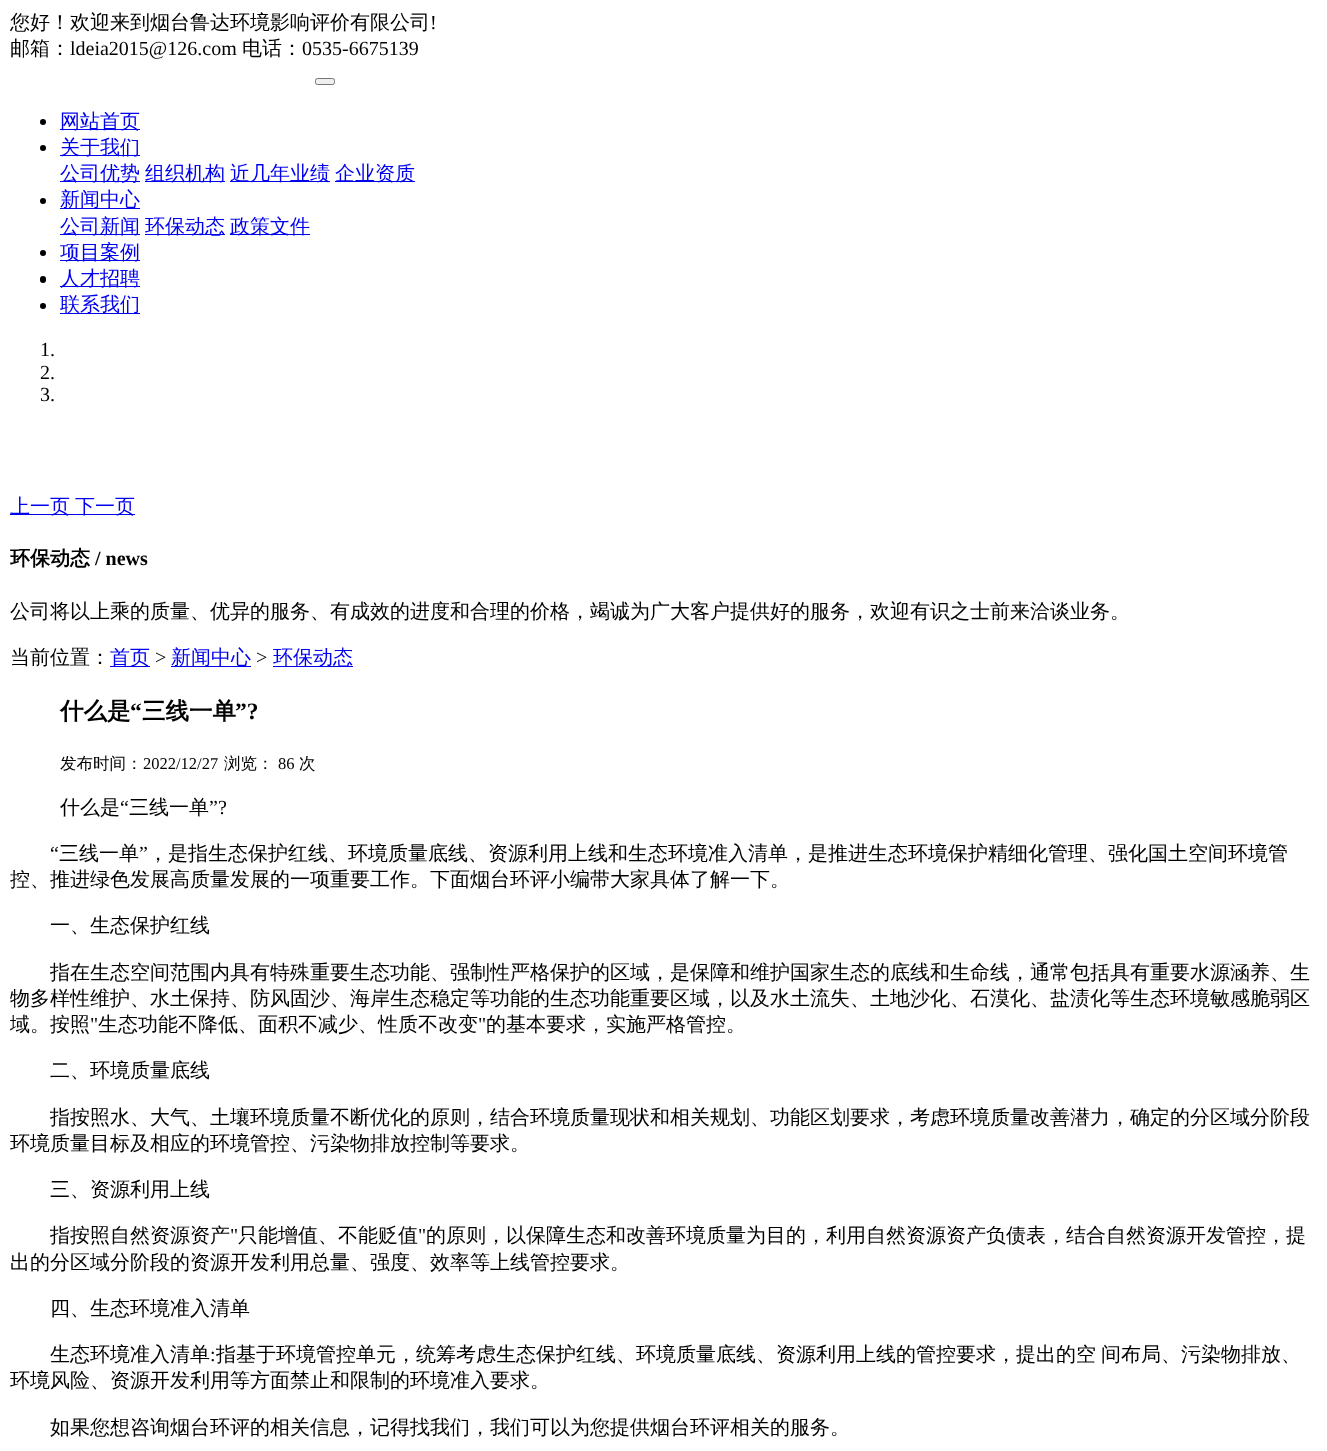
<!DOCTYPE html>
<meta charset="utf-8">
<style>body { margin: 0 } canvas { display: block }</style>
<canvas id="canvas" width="1327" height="1451"></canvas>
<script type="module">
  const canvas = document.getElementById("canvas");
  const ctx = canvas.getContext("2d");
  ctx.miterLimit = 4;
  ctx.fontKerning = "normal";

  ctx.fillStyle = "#ffffff";
  ctx.fillRect(0, 0, 1327, 1451);
  ctx.font = "500 20px WenQuanYi Zen Hei";
  ctx.fillStyle = "#000000";
  ctx.fillText("您好！欢迎来到烟台鲁达环境影响评价有限公司", 10, 29);
  ctx.font = "20px Liberation Serif";
  ctx.fillText("!", 430, 29);
  ctx.font = "500 20px WenQuanYi Zen Hei";
  ctx.fillText("邮箱：", 10, 55);
  ctx.font = "20px Liberation Serif";
  ctx.fillText("ldeia2015@126.com", 70, 55);
  ctx.font = "500 20px WenQuanYi Zen Hei";
  ctx.fillText("电话：", 242, 55);
  ctx.font = "20px Liberation Serif";
  ctx.fillText("0535-6675139", 302, 55);
  ctx.fillStyle = "#efefef";
  ctx.beginPath();
  ctx.roundRect(315.5, 78.5, 19, 6, 2);
  ctx.fill();
  ctx.strokeStyle = "#767676";
  ctx.stroke();
  ctx.fillStyle = "#000000";
  ctx.beginPath();
  ctx.arc(43, 122, 3, 0, Math.PI * 2);
  ctx.fill();
  ctx.fillStyle = "#0000ee";
  ctx.fillRect(60, 129, 80, 1);
  ctx.font = "500 20px WenQuanYi Zen Hei";
  ctx.fillText("网站首页", 60, 128);
  ctx.fillStyle = "#000000";
  ctx.beginPath();
  ctx.arc(43, 148, 3, 0, Math.PI * 2);
  ctx.fill();
  ctx.fillStyle = "#0000ee";
  ctx.fillRect(60, 155, 80, 1);
  ctx.fillText("关于我们", 60, 154);
  ctx.fillRect(60, 181, 80, 1);
  ctx.fillText("公司优势", 60, 180);
  ctx.fillRect(145, 181, 80, 1);
  ctx.fillText("组织机构", 145, 180);
  ctx.fillRect(230, 181, 100, 1);
  ctx.fillText("近几年业绩", 230, 180);
  ctx.fillRect(335, 181, 80, 1);
  ctx.fillText("企业资质", 335, 180);
  ctx.fillStyle = "#000000";
  ctx.beginPath();
  ctx.arc(43, 201, 3, 0, Math.PI * 2);
  ctx.fill();
  ctx.fillStyle = "#0000ee";
  ctx.fillRect(60, 208, 80, 1);
  ctx.fillText("新闻中心", 60, 206);
  ctx.fillRect(60, 234, 80, 1);
  ctx.fillText("公司新闻", 60, 233);
  ctx.fillRect(145, 234, 80, 1);
  ctx.fillText("环保动态", 145, 233);
  ctx.fillRect(230, 234, 80, 1);
  ctx.fillText("政策文件", 230, 233);
  ctx.fillStyle = "#000000";
  ctx.beginPath();
  ctx.arc(43, 253, 3, 0, Math.PI * 2);
  ctx.fill();
  ctx.fillStyle = "#0000ee";
  ctx.fillRect(60, 260, 80, 1);
  ctx.fillText("项目案例", 60, 259);
  ctx.fillStyle = "#000000";
  ctx.beginPath();
  ctx.roundRect(40, 276, 6, 7, 3);
  ctx.fill();
  ctx.fillStyle = "#0000ee";
  ctx.fillRect(60, 286, 80, 1);
  ctx.fillText("人才招聘", 60, 285);
  ctx.fillStyle = "#000000";
  ctx.beginPath();
  ctx.arc(43, 306, 3, 0, Math.PI * 2);
  ctx.fill();
  ctx.fillStyle = "#0000ee";
  ctx.fillRect(60, 313, 80, 1);
  ctx.fillText("联系我们", 60, 311);
  ctx.font = "20px Liberation Serif";
  ctx.fillStyle = "#000000";
  ctx.fillText("1.", 40, 356);
  ctx.fillText("2.", 40, 379);
  ctx.fillText("3.", 40, 401);
  ctx.fillStyle = "#0000ee";
  ctx.fillRect(10, 514, 125, 1);
  ctx.font = "500 20px WenQuanYi Zen Hei";
  ctx.fillText("上一页", 10, 513);
  ctx.fillText("下一页", 75, 513);
  ctx.font = "bold 20px WenQuanYi Zen Hei";
  ctx.fillStyle = "#000000";
  ctx.fillText("环保动态", 10, 565);
  ctx.font = "bold 20px Liberation Serif";
  ctx.fillText("/ news", 95, 565);
  ctx.font = "500 20px WenQuanYi Zen Hei";
  ctx.fillText("公司将以上乘的质量、优异的服务、有成效的进度和合理的价格，竭诚为广大客户提供好的服务，欢迎有识之士前来洽谈业务。", 10, 618);
  ctx.fillText("当前位置：", 10, 664);
  ctx.fillStyle = "#0000ee";
  ctx.fillRect(110, 666, 40, 1);
  ctx.fillText("首页", 110, 664);
  ctx.font = "20px Liberation Serif";
  ctx.fillStyle = "#000000";
  ctx.fillText(">", 155, 664);
  ctx.fillStyle = "#0000ee";
  ctx.fillRect(171, 666, 80, 1);
  ctx.font = "500 20px WenQuanYi Zen Hei";
  ctx.fillText("新闻中心", 171, 664);
  ctx.font = "20px Liberation Serif";
  ctx.fillStyle = "#000000";
  ctx.fillText(">", 256, 664);
  ctx.fillStyle = "#0000ee";
  ctx.fillRect(273, 666, 80, 1);
  ctx.font = "500 20px WenQuanYi Zen Hei";
  ctx.fillText("环保动态", 273, 664);
  ctx.font = "bold 23.5px WenQuanYi Zen Hei";
  ctx.fillStyle = "#000000";
  ctx.fillText("什么是", 60, 719);
  ctx.font = "bold 23.5px Liberation Serif";
  ctx.fillText("“", 130, 719);
  ctx.font = "bold 23.5px WenQuanYi Zen Hei";
  ctx.fillText("三线一单", 142, 719);
  ctx.font = "bold 23.5px Liberation Serif";
  ctx.fillText("”?", 235, 719);
  ctx.font = "500 16.5px WenQuanYi Zen Hei";
  ctx.fillText("发布时间：", 60, 769);
  ctx.font = "16.5px Liberation Serif";
  ctx.fillText("2022/12/27", 143, 769);
  ctx.font = "500 16.5px WenQuanYi Zen Hei";
  ctx.fillText("浏览：", 224, 769);
  ctx.font = "16.5px Liberation Serif";
  ctx.fillText("86", 278, 769);
  ctx.font = "500 16.5px WenQuanYi Zen Hei";
  ctx.fillText("次", 299, 769);
  ctx.font = "500 20px WenQuanYi Zen Hei";
  ctx.fillText("什么是", 60, 814);
  ctx.font = "20px Liberation Serif";
  ctx.fillText("“", 120, 814);
  ctx.font = "500 20px WenQuanYi Zen Hei";
  ctx.fillText("三线一单", 129, 814);
  ctx.font = "20px Liberation Serif";
  ctx.fillText("”?", 209, 814);
  ctx.fillText("“", 50, 860);
  ctx.font = "500 20px WenQuanYi Zen Hei";
  ctx.fillText("三线一单", 59, 860);
  ctx.font = "20px Liberation Serif";
  ctx.fillText("”", 139, 860);
  ctx.font = "500 20px WenQuanYi Zen Hei";
  ctx.fillText("，是指生态保护红线、环境质量底线、资源利用上线和生态环境准入清单，是推进生态环境保护精细化管理、强化国土空间环境管", 148, 860);
  ctx.fillText("控、推进绿色发展高质量发展的一项重要工作。下面烟台环评小编带大家具体了解一下。", 10, 886);
  ctx.fillText("一、生态保护红线", 50, 932);
  ctx.fillText("指在生态空间范围内具有特殊重要生态功能、强制性严格保护的区域，是保障和维护国家生态的底线和生命线，通常包括具有重要水源涵养、生", 50, 979);
  ctx.fillText("物多样性维护、水土保持、防风固沙、海岸生态稳定等功能的生态功能重要区域，以及水土流失、土地沙化、石漠化、盐渍化等生态环境敏感脆弱区", 10, 1005);
  ctx.fillText("域。按照", 10, 1031);
  ctx.font = "20px Liberation Serif";
  ctx.fillText("\"", 90, 1031);
  ctx.font = "500 20px WenQuanYi Zen Hei";
  ctx.fillText("生态功能不降低、面积不减少、性质不改变", 98, 1031);
  ctx.font = "20px Liberation Serif";
  ctx.fillText("\"", 478, 1031);
  ctx.font = "500 20px WenQuanYi Zen Hei";
  ctx.fillText("的基本要求，实施严格管控。", 486, 1031);
  ctx.fillText("二、环境质量底线", 50, 1077);
  ctx.fillText("指按照水、大气、土壤环境质量不断优化的原则，结合环境质量现状和相关规划、功能区划要求，考虑环境质量改善潜力，确定的分区域分阶段", 50, 1124);
  ctx.fillText("环境质量目标及相应的环境管控、污染物排放控制等要求。", 10, 1150);
  ctx.fillText("三、资源利用上线", 50, 1196);
  ctx.fillText("指按照自然资源资产", 50, 1242);
  ctx.font = "20px Liberation Serif";
  ctx.fillText("\"", 230, 1242);
  ctx.font = "500 20px WenQuanYi Zen Hei";
  ctx.fillText("只能增值、不能贬值", 238, 1242);
  ctx.font = "20px Liberation Serif";
  ctx.fillText("\"", 418, 1242);
  ctx.font = "500 20px WenQuanYi Zen Hei";
  ctx.fillText("的原则，以保障生态和改善环境质量为目的，利用自然资源资产负债表，结合自然资源开发管控，提", 426, 1242);
  ctx.fillText("出的分区域分阶段的资源开发利用总量、强度、效率等上线管控要求。", 10, 1269);
  ctx.fillText("四、生态环境准入清单", 50, 1315);
  ctx.fillText("生态环境准入清单", 50, 1361);
  ctx.font = "20px Liberation Serif";
  ctx.fillText(":", 210, 1361);
  ctx.wordSpacing = "-1px";
  ctx.font = "500 20px WenQuanYi Zen Hei";
  ctx.fillText("指基于环境管控单元，统筹考虑生态保护红线、环境质量底线、资源利用上线的管控要求，提出的空 间布局、污染物排放、", 216, 1361);
  ctx.wordSpacing = "0px";
  ctx.fillText("环境风险、资源开发利用等方面禁止和限制的环境准入要求。", 10, 1387);
  ctx.fillText("如果您想咨询烟台环评的相关信息，记得找我们，我们可以为您提供烟台环评相关的服务。", 50, 1434);
</script>
